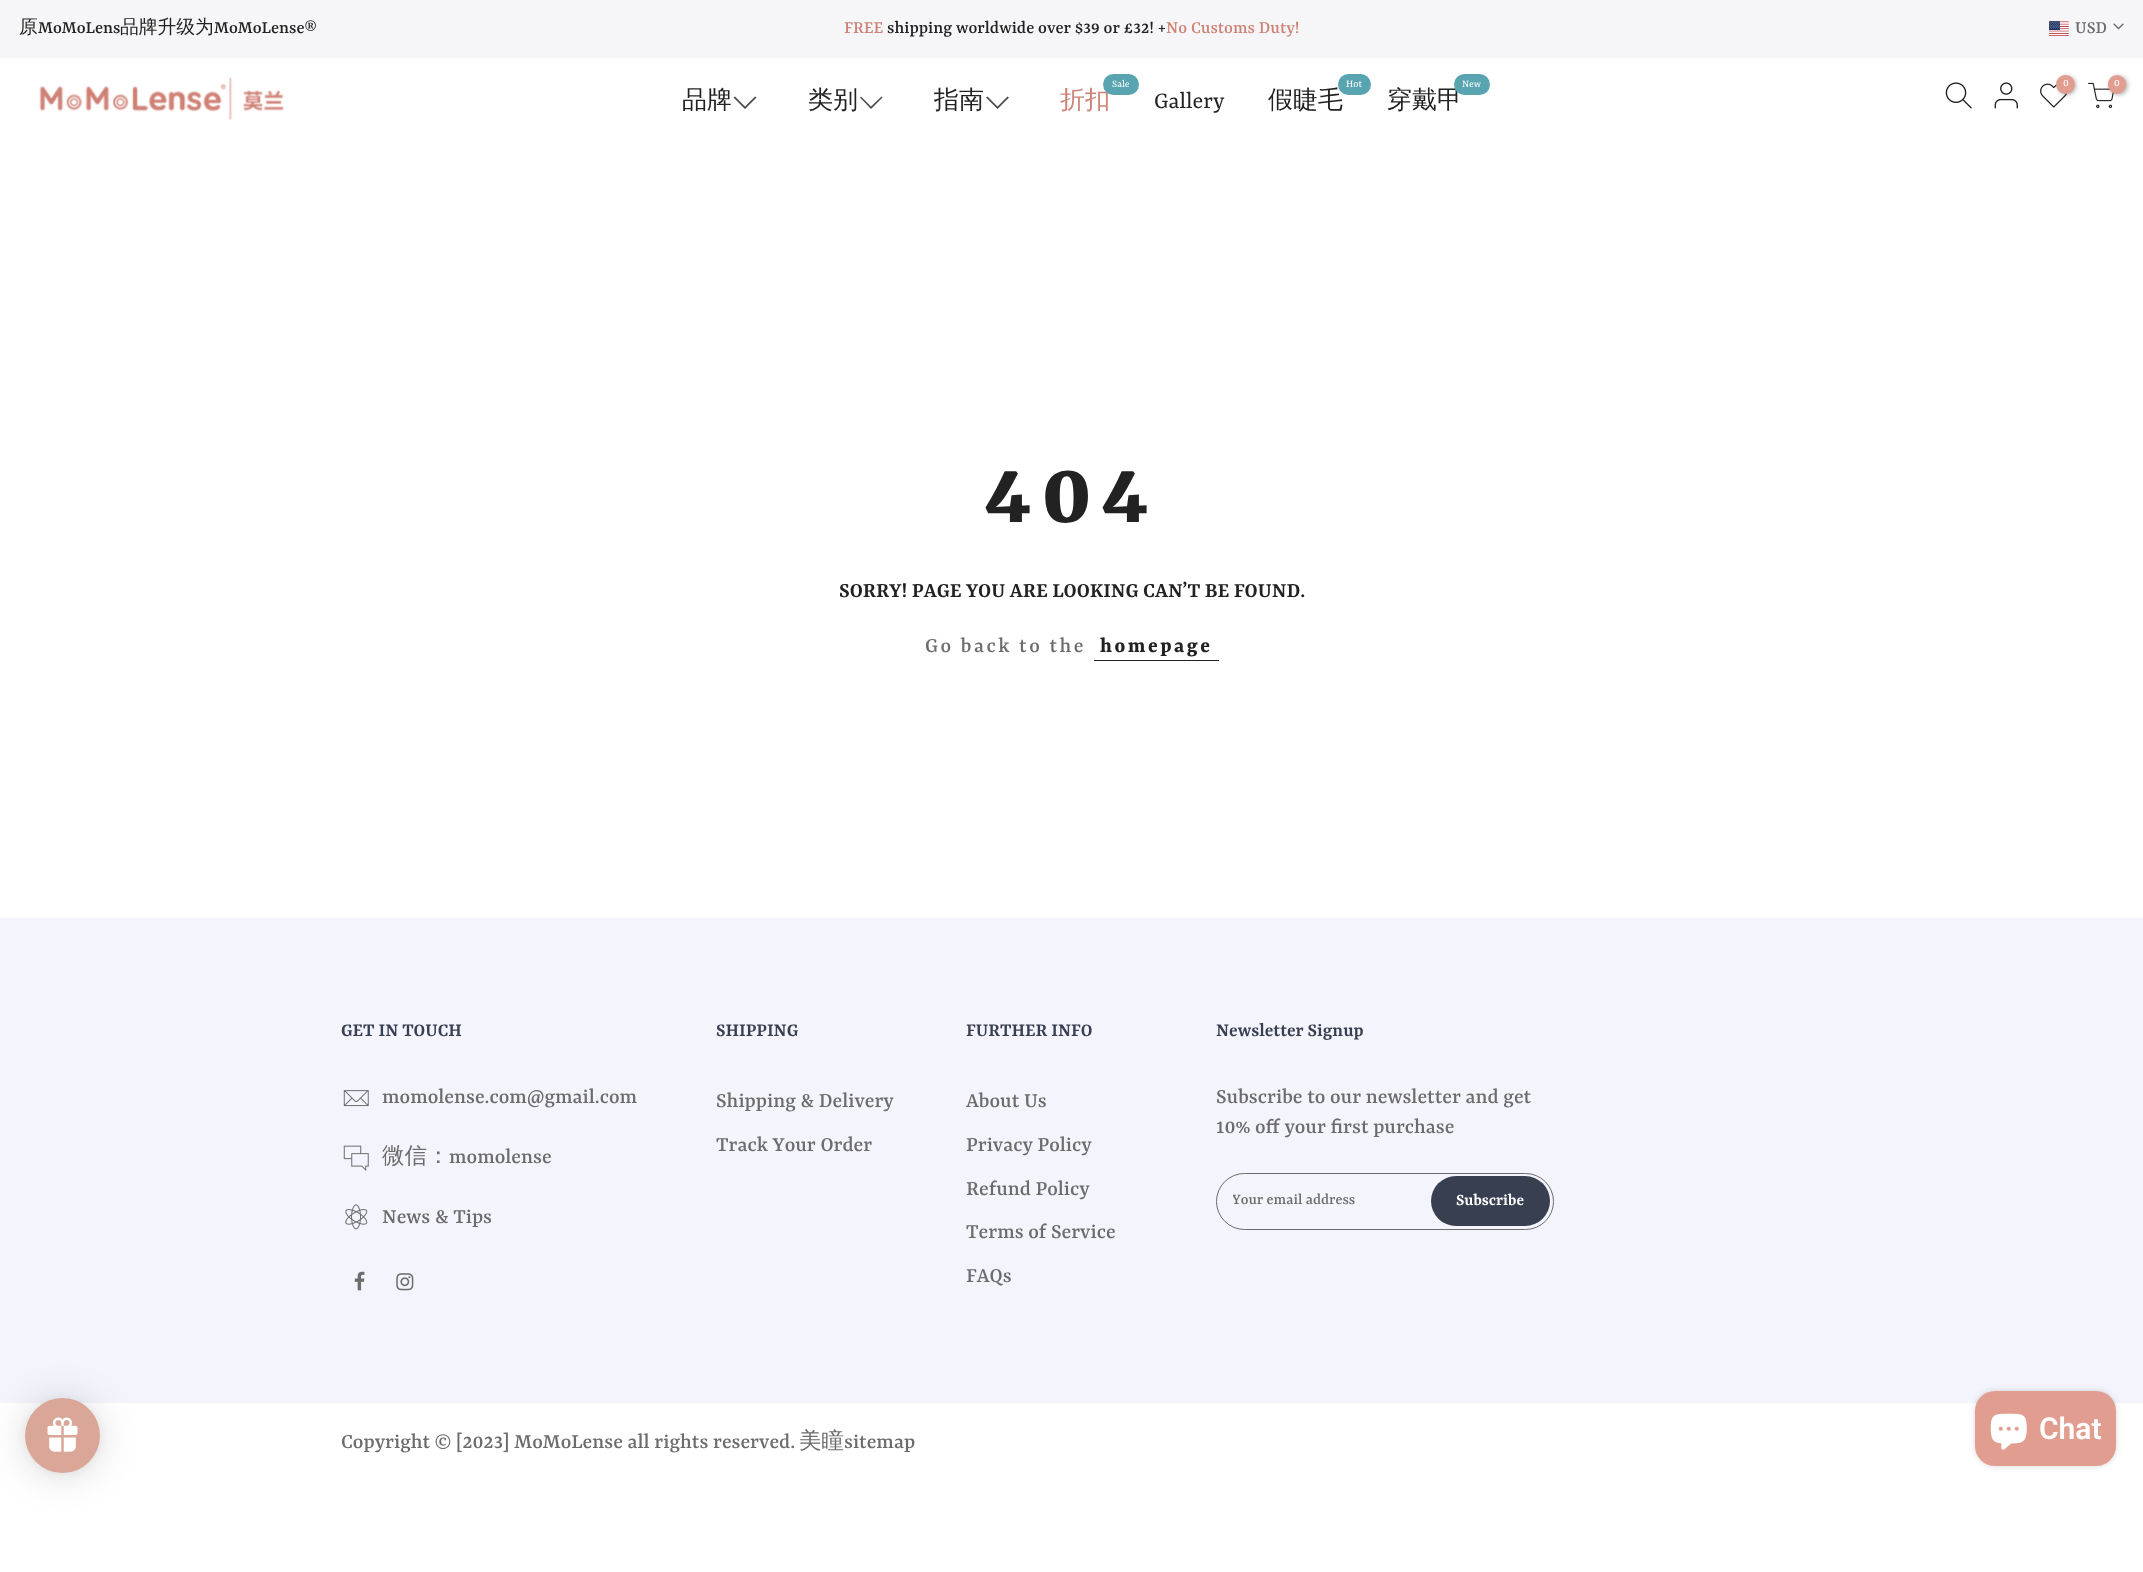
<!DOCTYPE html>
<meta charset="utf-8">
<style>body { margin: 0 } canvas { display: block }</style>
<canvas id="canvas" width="2143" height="1572"></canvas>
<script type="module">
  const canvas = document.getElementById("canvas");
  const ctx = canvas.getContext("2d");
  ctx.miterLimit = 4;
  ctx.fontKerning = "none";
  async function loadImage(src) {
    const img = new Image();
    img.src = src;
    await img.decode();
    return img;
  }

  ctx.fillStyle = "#ffffff";
  ctx.fillRect(0, 0, 2143, 1572);
  ctx.fillStyle = "#f6f6f8";
  ctx.fillRect(0, 0, 2143, 58);
  ctx.font = "500 18.75px WenQuanYi Zen Hei";
  ctx.fillStyle = "#222222";
  ctx.fillText("原", 19, 33);
  ctx.font = "500 18.75px Rasa";
  ctx.fillText("MoMoLens", 38, 33);
  ctx.font = "500 18.75px WenQuanYi Zen Hei";
  ctx.fillText("品牌升级为", 120, 33);
  ctx.font = "500 18.75px Rasa";
  ctx.fillText("MoMoLense®", 214, 33);
  ctx.fillStyle = "#cd8375";
  ctx.fillText("FREE", 844, 33);
  ctx.fillStyle = "#222222";
  ctx.fillText("shipping worldwide over $39 or £32! +", 887, 33);
  ctx.fillStyle = "#cd8375";
  ctx.fillText("No Customs Duty!", 1166, 33);
  ctx.drawImage(await loadImage("img1.png"), 2049, 21, 20, 15);
  ctx.fillStyle = "#6c6c6c";
  ctx.fillText("USD", 2075, 33);
  ctx.drawImage(await loadImage("img2.png"), 2113, 23, 11, 7);
  ctx.drawImage(await loadImage("img3.png"), 39, 77, 245, 44);
  ctx.font = "500 25px WenQuanYi Zen Hei";
  ctx.fillStyle = "#222222";
  ctx.fillText("品牌", 682, 108);
  ctx.fillStyle = "#4e4e4e";
  ctx.beginPath();
  ctx.moveTo(735, 96.5);
  ctx.lineTo(733.5, 97.5);
  ctx.lineTo(745, 109);
  ctx.lineTo(756.5, 97.5);
  ctx.lineTo(755, 96.5);
  ctx.lineTo(745, 106.5);
  ctx.closePath();
  ctx.fill();
  ctx.fillStyle = "#222222";
  ctx.fillText("类别", 808, 108);
  ctx.fillStyle = "#4e4e4e";
  ctx.beginPath();
  ctx.moveTo(861, 96.5);
  ctx.lineTo(860, 97.5);
  ctx.lineTo(871, 109);
  ctx.lineTo(882.5, 97.5);
  ctx.lineTo(881.5, 96.5);
  ctx.lineTo(871, 106.5);
  ctx.closePath();
  ctx.fill();
  ctx.fillStyle = "#222222";
  ctx.fillText("指南", 934, 108);
  ctx.fillStyle = "#4e4e4e";
  ctx.beginPath();
  ctx.moveTo(987.5, 96.5);
  ctx.lineTo(986, 97.5);
  ctx.lineTo(997.5, 109);
  ctx.lineTo(1009, 97.5);
  ctx.lineTo(1007.5, 96.5);
  ctx.lineTo(997.5, 106.5);
  ctx.closePath();
  ctx.fill();
  ctx.fillStyle = "#cd8375";
  ctx.fillText("折扣", 1060, 108);
  ctx.fillStyle = "#58a4b0";
  ctx.beginPath();
  ctx.roundRect(1103, 74, 36, 21, 10.5);
  ctx.fill();
  ctx.font = "11px Rasa";
  ctx.fillStyle = "#ffffff";
  ctx.fillText("Sale", 1112, 87);
  ctx.font = "25px Rasa";
  ctx.fillStyle = "#222222";
  ctx.fillText("Gallery", 1154, 108);
  ctx.font = "500 25px WenQuanYi Zen Hei";
  ctx.fillText("假睫毛", 1268, 108);
  ctx.fillStyle = "#58a4b0";
  ctx.beginPath();
  ctx.roundRect(1338, 74, 33, 21, 10.5);
  ctx.fill();
  ctx.font = "11px Rasa";
  ctx.fillStyle = "#ffffff";
  ctx.fillText("Hot", 1346, 87);
  ctx.font = "500 25px WenQuanYi Zen Hei";
  ctx.fillStyle = "#222222";
  ctx.fillText("穿戴甲", 1387, 108);
  ctx.fillStyle = "#58a4b0";
  ctx.beginPath();
  ctx.roundRect(1454, 74, 36, 21, 10.5);
  ctx.fill();
  ctx.font = "11px Rasa";
  ctx.fillStyle = "#ffffff";
  ctx.fillText("New", 1462, 87);
  ctx.drawImage(await loadImage("img4.png"), 1945, 82, 27, 27);
  ctx.drawImage(await loadImage("img5.png"), 1994, 82, 24, 27);
  ctx.drawImage(await loadImage("img6.png"), 2040, 83, 28, 25);
  ctx.fillStyle = "rgba(0, 0, 0, 0.3)";
  ctx.filter = "blur(2px)";
  ctx.beginPath();
  ctx.roundRect(2058, 76, 18, 19, 9);
  ctx.fill();
  ctx.filter = "none";
  ctx.fillStyle = "#e19d90";
  ctx.beginPath();
  ctx.arc(2065.5, 84.5, 9.5, 0, Math.PI * 2);
  ctx.fill();
  ctx.font = "12px Rasa";
  ctx.fillStyle = "#ffffff";
  ctx.fillText("0", 2063, 86);
  ctx.drawImage(await loadImage("img7.png"), 2088, 82, 26, 26);
  ctx.fillStyle = "rgba(0, 0, 0, 0.3)";
  ctx.filter = "blur(2px)";
  ctx.beginPath();
  ctx.roundRect(2109, 76, 19, 19, 9.5);
  ctx.fill();
  ctx.filter = "none";
  ctx.fillStyle = "#e19d90";
  ctx.beginPath();
  ctx.roundRect(2108, 75, 18, 19, 9);
  ctx.fill();
  ctx.fillStyle = "#ffffff";
  ctx.fillText("0", 2114, 86);
  ctx.letterSpacing = "10px";
  ctx.font = "bold 100px Rasa";
  ctx.fillStyle = "#222222";
  ctx.fillText("404", 985, 522);
  ctx.letterSpacing = "0px";
  ctx.font = "600 22.5px Rasa";
  ctx.fillText("SORRY! PAGE YOU ARE LOOKING CAN’T BE FOUND.", 839, 597);
  ctx.letterSpacing = "2.5px";
  ctx.font = "500 22.5px Rasa";
  ctx.fillStyle = "#6c6c6c";
  ctx.fillText("Go back to the", 925, 652);
  ctx.font = "bold 22.5px Rasa";
  ctx.fillStyle = "#222222";
  ctx.fillText("homepage", 1100, 652);
  ctx.fillRect(1094, 660, 125, 1);
  ctx.fillStyle = "#f4f4fc";
  ctx.fillRect(0, 918, 2143, 485);
  ctx.letterSpacing = "0px";
  ctx.font = "600 20px Rasa";
  ctx.fillStyle = "#373f51";
  ctx.fillText("GET IN TOUCH", 341, 1036);
  ctx.drawImage(await loadImage("img8.png"), 343, 1090, 26, 17);
  ctx.font = "500 22.5px Rasa";
  ctx.fillStyle = "#6c6c6c";
  ctx.fillText("momolense.com@gmail.com", 382, 1103);
  ctx.drawImage(await loadImage("img9.png"), 343, 1145, 26, 26);
  ctx.font = "500 22.5px WenQuanYi Zen Hei";
  ctx.fillText("微信：", 382, 1163);
  ctx.font = "500 22.5px Rasa";
  ctx.fillText("momolense", 449, 1163);
  ctx.drawImage(await loadImage("img10.png"), 345, 1204, 23, 26);
  ctx.fillText("News & Tips", 382, 1223);
  ctx.drawImage(await loadImage("img11.png"), 354, 1271, 11, 20);
  ctx.drawImage(await loadImage("img12.png"), 396, 1273, 18, 18);
  ctx.font = "600 20px Rasa";
  ctx.fillStyle = "#373f51";
  ctx.fillText("SHIPPING", 716, 1036);
  ctx.font = "500 22.5px Rasa";
  ctx.fillStyle = "#6c6c6c";
  ctx.fillText("Shipping & Delivery", 716, 1107);
  ctx.fillText("Track Your Order", 716, 1151);
  ctx.font = "600 20px Rasa";
  ctx.fillStyle = "#373f51";
  ctx.fillText("FURTHER INFO", 966, 1036);
  ctx.font = "500 22.5px Rasa";
  ctx.fillStyle = "#6c6c6c";
  ctx.fillText("About Us", 966, 1107);
  ctx.fillText("Privacy Policy", 966, 1151);
  ctx.fillText("Refund Policy", 966, 1195);
  ctx.fillText("Terms of Service", 966, 1238);
  ctx.fillText("FAQs", 966, 1282);
  ctx.font = "600 20px Rasa";
  ctx.fillStyle = "#373f51";
  ctx.fillText("Newsletter Signup", 1216, 1036);
  ctx.font = "500 22.5px Rasa";
  ctx.fillStyle = "#6c6c6c";
  ctx.fillText("Subscribe to our newsletter and get", 1216, 1103);
  ctx.fillText("10% off your first purchase", 1216, 1133);
  ctx.beginPath();
  ctx.roundRect(1216.5, 1173.5, 337, 56, 28);
  ctx.strokeStyle = "#6c6c6c";
  ctx.stroke();
  ctx.save();
  ctx.beginPath();
  ctx.rect(1233, 1191, 186, 20);
  ctx.clip();
  ctx.font = "500 16.25px Rasa";
  ctx.fillText("Your email address", 1232, 1204);
  ctx.restore();
  ctx.fillStyle = "#373f51";
  ctx.beginPath();
  ctx.roundRect(1431, 1176, 119, 50, 25);
  ctx.fill();
  ctx.font = "600 17.5px Rasa";
  ctx.fillStyle = "#ffffff";
  ctx.fillText("Subscribe", 1456, 1205);
  ctx.font = "500 22.5px Rasa";
  ctx.fillStyle = "#6c6c6c";
  ctx.fillText("Copyright © [2023] MoMoLense all rights reserved.", 341, 1448);
  ctx.font = "500 22.5px WenQuanYi Zen Hei";
  ctx.fillText("美瞳", 799, 1448);
  ctx.font = "500 22.5px Rasa";
  ctx.fillText("sitemap", 844, 1448);
  ctx.fillStyle = "rgba(0, 0, 0, 0.15)";
  ctx.filter = "blur(19px)";
  ctx.beginPath();
  ctx.roundRect(25, 1400, 75, 75, 37.5);
  ctx.fill();
  ctx.filter = "none";
  ctx.fillStyle = "rgba(0, 0, 0, 0.05)";
  ctx.filter = "blur(4px)";
  ctx.beginPath();
  ctx.roundRect(25, 1399, 75, 75, 37.5);
  ctx.fill();
  ctx.filter = "none";
  ctx.fillStyle = "#d9a697";
  ctx.beginPath();
  ctx.arc(62.5, 1435.5, 37.5, 0, Math.PI * 2);
  ctx.fill();
  ctx.drawImage(await loadImage("img13.png"), 47, 1417, 31, 35);
  ctx.fillStyle = "rgba(0, 0, 0, 0.15)";
  ctx.filter = "blur(3px)";
  ctx.beginPath();
  ctx.roundRect(1975, 1391, 141, 75, 20);
  ctx.fill();
  ctx.filter = "none";
  ctx.fillStyle = "#e19d90";
  ctx.beginPath();
  ctx.roundRect(1975, 1391, 141, 75, 20);
  ctx.fill();
  ctx.drawImage(await loadImage("img14.png"), 1990, 1413, 37, 37);
  ctx.font = "600 30px Roboto";
  ctx.fillStyle = "#ffffff";
  ctx.fillText("Chat", 2039, 1439);
</script>
